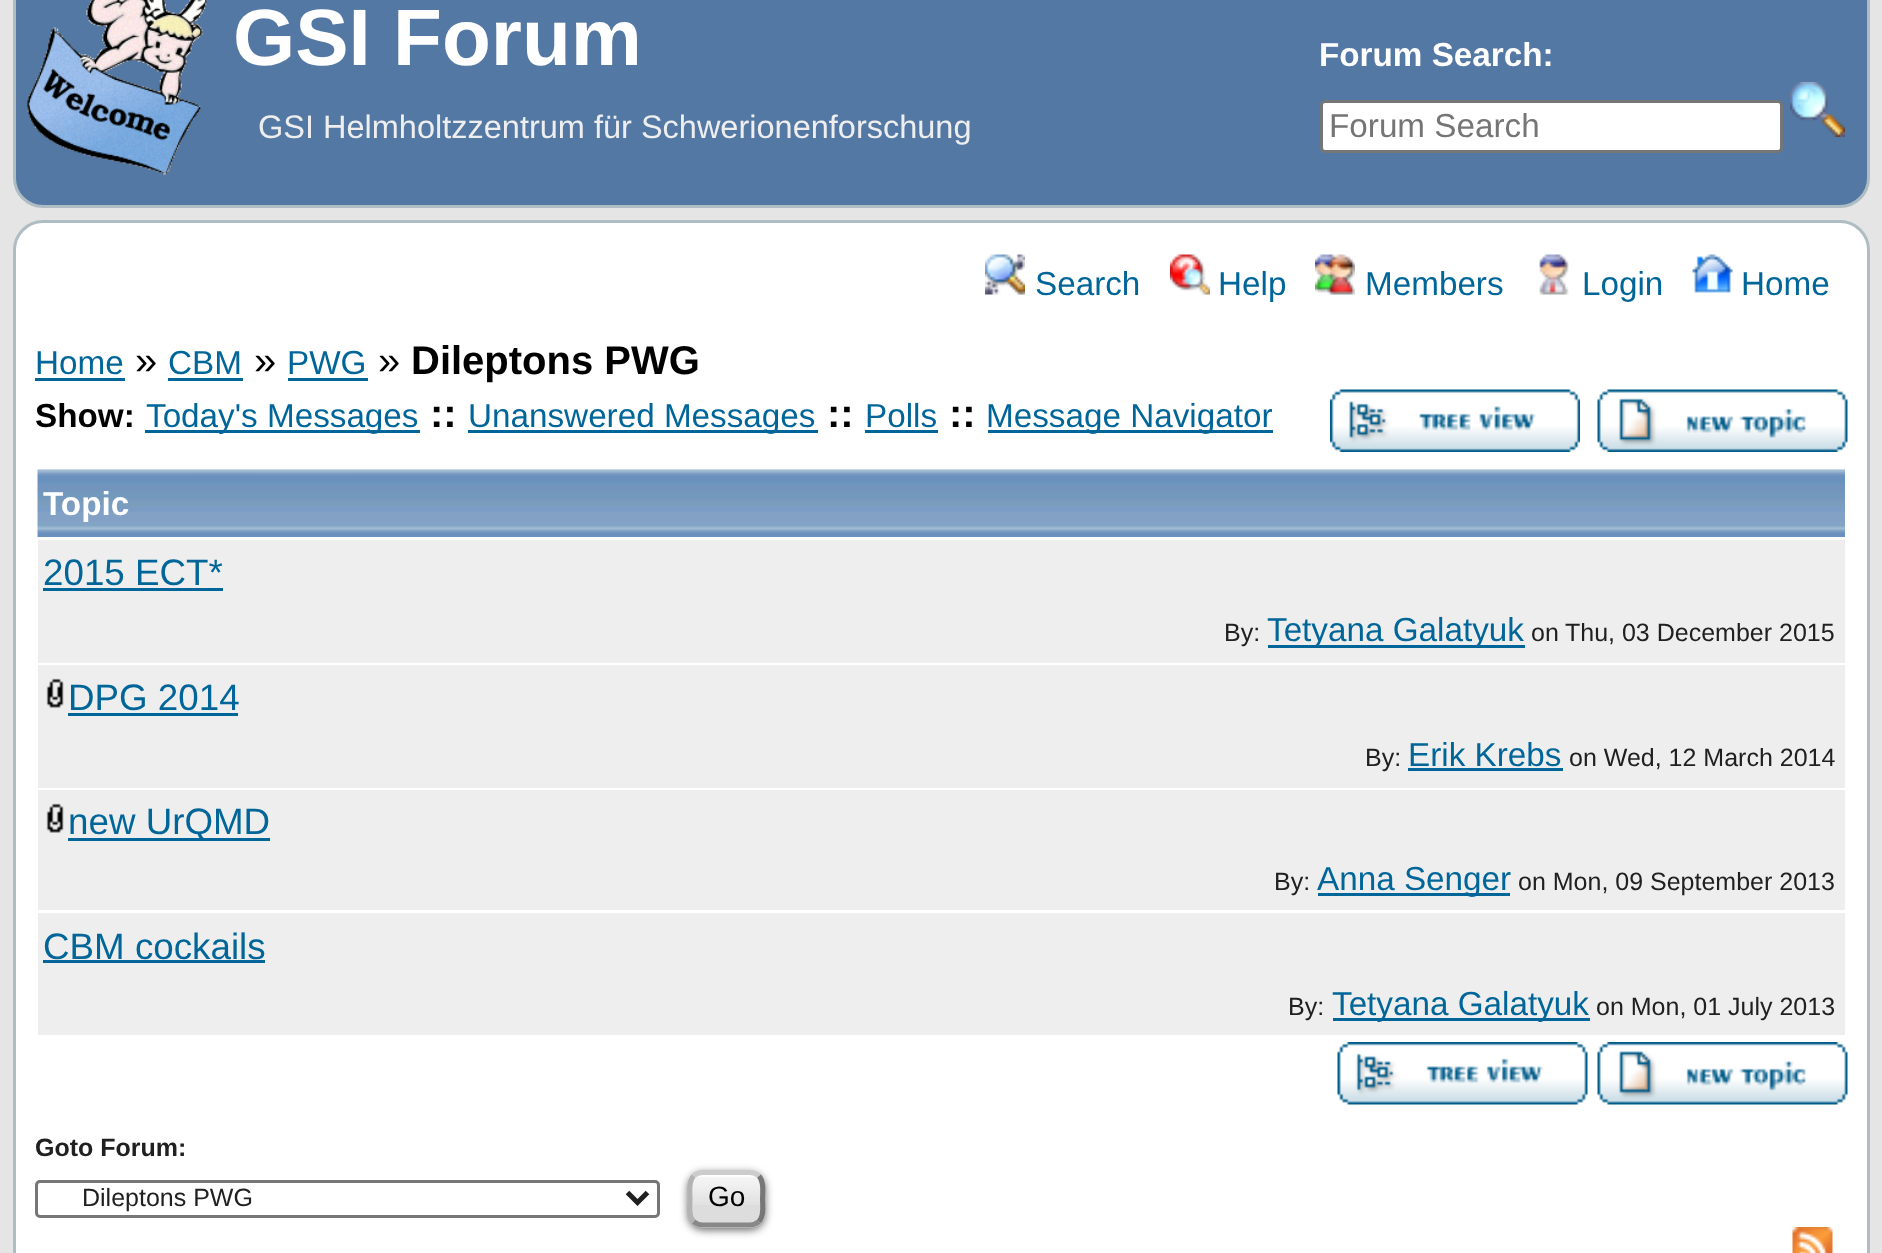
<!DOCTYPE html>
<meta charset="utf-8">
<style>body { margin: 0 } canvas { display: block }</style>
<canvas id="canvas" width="1882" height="1253"></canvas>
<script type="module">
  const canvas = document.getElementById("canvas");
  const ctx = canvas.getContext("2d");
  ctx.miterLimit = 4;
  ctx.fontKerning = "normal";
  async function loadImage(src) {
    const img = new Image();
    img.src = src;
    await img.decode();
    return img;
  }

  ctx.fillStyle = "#e5e5e5";
  ctx.fillRect(0, 0, 1882, 1253);
  ctx.fillStyle = "#5478a4";
  ctx.beginPath();
  ctx.roundRect(14.5, -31.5, 1854, 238, 28.5);
  ctx.fill();
  ctx.strokeStyle = "#aebdc4";
  ctx.lineWidth = 3;
  ctx.stroke();
  ctx.drawImage(await loadImage("img1.png"), 27, 0, 181, 175);
  ctx.font = "bold 80px Liberation Sans";
  ctx.fillStyle = "#ffffff";
  ctx.fillText("GSI Forum", 233, 65);
  ctx.font = "bold 33.25px Liberation Sans";
  ctx.fillText("Forum Search:", 1319, 66);
  ctx.beginPath();
  ctx.roundRect(1321.5, 101.5, 460, 50, 3.5);
  ctx.fill();
  ctx.strokeStyle = "#767676";
  ctx.stroke();
  ctx.font = "33.25px Liberation Sans";
  ctx.fillStyle = "#757575";
  ctx.fillText("Forum Search", 1329, 137);
  ctx.drawImage(await loadImage("img2.png"), 1790, 82, 55, 55);
  ctx.font = "32.5px Liberation Sans";
  ctx.fillStyle = "#eeeeee";
  ctx.fillText("GSI Helmholtzzentrum für Schwerionenforschung", 258, 138);
  ctx.fillStyle = "#ffffff";
  ctx.beginPath();
  ctx.roundRect(14.5, 221.5, 1854, 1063, 28.5);
  ctx.fill();
  ctx.strokeStyle = "#aebdc4";
  ctx.stroke();
  ctx.drawImage(await loadImage("img3.png"), 985, 254, 40, 41);
  ctx.font = "33.25px Liberation Sans";
  ctx.fillStyle = "#006699";
  ctx.fillText("Search", 1035, 295);
  ctx.drawImage(await loadImage("img4.png"), 1170, 254, 40, 41);
  ctx.fillText("Help", 1218, 295);
  ctx.drawImage(await loadImage("img5.png"), 1315, 254, 40, 41);
  ctx.fillText("Members", 1365, 295);
  ctx.drawImage(await loadImage("img6.png"), 1539, 254, 30, 41);
  ctx.fillText("Login", 1582, 295);
  ctx.drawImage(await loadImage("img7.png"), 1692, 254, 41, 39);
  ctx.fillText("Home", 1741, 295);
  ctx.fillText("Home", 35, 374);
  ctx.fillRect(35, 378, 90, 3);
  ctx.font = "40px Liberation Sans";
  ctx.fillStyle = "#000000";
  ctx.fillText("»", 135, 374);
  ctx.font = "33.25px Liberation Sans";
  ctx.fillStyle = "#006699";
  ctx.fillText("CBM", 168, 374);
  ctx.fillRect(168, 378, 75, 3);
  ctx.font = "40px Liberation Sans";
  ctx.fillStyle = "#000000";
  ctx.fillText("»", 254, 374);
  ctx.font = "33.25px Liberation Sans";
  ctx.fillStyle = "#006699";
  ctx.fillText("PWG", 287, 374);
  ctx.fillRect(288, 378, 80, 3);
  ctx.font = "40px Liberation Sans";
  ctx.fillStyle = "#000000";
  ctx.fillText("»", 378, 374);
  ctx.font = "bold 40px Liberation Sans";
  ctx.fillText("Dileptons PWG", 411, 374);
  ctx.font = "bold 33.25px Liberation Sans";
  ctx.fillText("Show:", 35, 427);
  ctx.fillStyle = "#006699";
  ctx.fillRect(145, 430, 275, 3);
  ctx.font = "33.25px Liberation Sans";
  ctx.fillText("Today's Messages", 146, 427);
  ctx.font = "bold 40px Liberation Sans";
  ctx.fillStyle = "#000000";
  ctx.fillText("::", 430, 427);
  ctx.fillStyle = "#006699";
  ctx.fillRect(468, 430, 350, 3);
  ctx.font = "33.25px Liberation Sans";
  ctx.fillText("Unanswered Messages", 468, 427);
  ctx.font = "bold 40px Liberation Sans";
  ctx.fillStyle = "#000000";
  ctx.fillText("::", 827, 427);
  ctx.font = "33.25px Liberation Sans";
  ctx.fillStyle = "#006699";
  ctx.fillText("Polls", 865, 427);
  ctx.fillRect(865, 430, 73, 3);
  ctx.font = "bold 40px Liberation Sans";
  ctx.fillStyle = "#000000";
  ctx.fillText("::", 949, 427);
  ctx.fillStyle = "#006699";
  ctx.fillRect(988, 430, 285, 3);
  ctx.font = "33.25px Liberation Sans";
  ctx.fillText("Message Navigator", 986, 427);
  ctx.drawImage(await loadImage("img8.png"), 1330, 389, 250, 63);
  ctx.drawImage(await loadImage("img9.png"), 1597, 389, 251, 63);
  ctx.drawImage(await loadImage("img10.png"), 37, 469, 1808, 68);
  ctx.font = "bold 33.25px Liberation Sans";
  ctx.fillStyle = "#ffffff";
  ctx.fillText("Topic", 43, 515);
  ctx.fillStyle = "#eeeeee";
  ctx.fillRect(38, 540, 1807, 123);
  ctx.font = "36.75px Liberation Sans";
  ctx.fillStyle = "#006699";
  ctx.fillText("2015 ECT*", 43, 585);
  ctx.fillRect(43, 588, 180, 3);
  ctx.font = "25px Liberation Sans";
  ctx.fillStyle = "#202020";
  ctx.fillText("By:", 1224, 641);
  ctx.fillStyle = "#006699";
  ctx.fillRect(1268, 645, 257, 3);
  ctx.font = "33.25px Liberation Sans";
  ctx.fillText("Tetyana Galatyuk", 1267, 641);
  ctx.font = "25px Liberation Sans";
  ctx.fillStyle = "#202020";
  ctx.fillText("on", 1531, 641);
  ctx.fillText("Thu, 03 December 2015", 1565, 641);
  ctx.fillStyle = "#eeeeee";
  ctx.fillRect(38, 665, 1807, 123);
  ctx.drawImage(await loadImage("img11.png"), 46, 678, 18, 30);
  ctx.font = "36.75px Liberation Sans";
  ctx.fillStyle = "#006699";
  ctx.fillText("DPG 2014", 68, 710);
  ctx.fillRect(68, 713, 170, 3);
  ctx.font = "25px Liberation Sans";
  ctx.fillStyle = "#202020";
  ctx.fillText("By:", 1365, 766);
  ctx.font = "33.25px Liberation Sans";
  ctx.fillStyle = "#006699";
  ctx.fillText("Erik Krebs", 1408, 766);
  ctx.fillRect(1408, 768, 155, 3);
  ctx.font = "25px Liberation Sans";
  ctx.fillStyle = "#202020";
  ctx.fillText("on Wed, 12 March 2014", 1569, 766);
  ctx.fillStyle = "#eeeeee";
  ctx.fillRect(38, 790, 1807, 120);
  ctx.drawImage(await loadImage("img11.png"), 46, 803, 18, 30);
  ctx.fillStyle = "#006699";
  ctx.fillRect(68, 838, 202, 3);
  ctx.font = "36.75px Liberation Sans";
  ctx.fillText("new UrQMD", 68, 834);
  ctx.font = "25px Liberation Sans";
  ctx.fillStyle = "#202020";
  ctx.fillText("By:", 1274, 890);
  ctx.fillStyle = "#006699";
  ctx.fillRect(1318, 893, 192, 3);
  ctx.font = "33.25px Liberation Sans";
  ctx.fillText("Anna Senger", 1317, 890);
  ctx.font = "25px Liberation Sans";
  ctx.fillStyle = "#202020";
  ctx.fillText("on Mon, 09 September 2013", 1518, 890);
  ctx.fillStyle = "#eeeeee";
  ctx.fillRect(38, 913, 1807, 122);
  ctx.font = "36.75px Liberation Sans";
  ctx.fillStyle = "#006699";
  ctx.fillText("CBM cockails", 43, 959);
  ctx.fillRect(43, 960, 222, 3);
  ctx.font = "25px Liberation Sans";
  ctx.fillStyle = "#202020";
  ctx.fillText("By:", 1288, 1015);
  ctx.fillStyle = "#006699";
  ctx.fillRect(1333, 1018, 257, 3);
  ctx.font = "33.25px Liberation Sans";
  ctx.fillText("Tetyana Galatyuk", 1332, 1015);
  ctx.font = "25px Liberation Sans";
  ctx.fillStyle = "#202020";
  ctx.fillText("on Mon, 01 July 2013", 1596, 1015);
  ctx.drawImage(await loadImage("img12.png"), 1337, 1042, 251, 63);
  ctx.drawImage(await loadImage("img13.png"), 1597, 1042, 251, 63);
  ctx.font = "bold 25px Liberation Sans";
  ctx.fillText("Goto Forum:", 35, 1156);
  ctx.beginPath();
  ctx.roundRect(36.5, 1181.5, 622, 35, 3.5);
  ctx.strokeStyle = "#767676";
  ctx.stroke();
  ctx.beginPath();
  ctx.moveTo(627.5, 1192.5);
  ctx.lineTo(637.5, 1202.5);
  ctx.lineTo(647.5, 1192.5);
  ctx.strokeStyle = "#202020";
  ctx.lineWidth = 5;
  ctx.stroke();
  ctx.font = "25px Liberation Sans";
  ctx.fillText("Dileptons PWG", 82, 1206);
  ctx.fillStyle = "rgba(0, 0, 0, 0.6)";
  ctx.filter = "blur(4px)";
  ctx.beginPath();
  ctx.roundRect(688, 1173, 77, 57, 15);
  ctx.fill();
  ctx.filter = "none";
  ctx.fillStyle = "#dddddd";
  ctx.beginPath();
  ctx.roundRect(688, 1170, 77, 58, 15);
  ctx.fill();
  ctx.drawImage(await loadImage("img14.png"), 687, 1174, 78, 31);
  ctx.beginPath();
  ctx.moveTo(693.5, 1176);
  ctx.bezierCurveTo(696, 1174, 699, 1172.5, 702.5, 1172.5);
  ctx.lineTo(750, 1172.5);
  ctx.bezierCurveTo(753.5, 1172.5, 756.5, 1174, 759, 1176);
  ctx.strokeStyle = "#cccccc";
  ctx.stroke();
  ctx.beginPath();
  ctx.moveTo(759, 1176);
  ctx.bezierCurveTo(764.5, 1182, 762.5, 1191.5, 762.5, 1199);
  ctx.bezierCurveTo(762.5, 1206, 764.5, 1215.5, 759, 1221.5);
  ctx.strokeStyle = "#787778";
  ctx.stroke();
  ctx.beginPath();
  ctx.moveTo(759, 1221.5);
  ctx.bezierCurveTo(756.5, 1223.5, 753.5, 1225, 750, 1225);
  ctx.lineTo(702.5, 1225);
  ctx.bezierCurveTo(699, 1225, 696, 1223.5, 693.5, 1221.5);
  ctx.strokeStyle = "#888888";
  ctx.stroke();
  ctx.beginPath();
  ctx.moveTo(693.5, 1221.5);
  ctx.bezierCurveTo(688, 1215.5, 690, 1206, 690, 1199);
  ctx.bezierCurveTo(690, 1191.5, 688, 1182, 693.5, 1176);
  ctx.strokeStyle = "#b4b2b4";
  ctx.stroke();
  ctx.font = "28px Liberation Sans";
  ctx.fillStyle = "#000000";
  ctx.fillText("Go", 708, 1206);
  ctx.drawImage(await loadImage("img15.png"), 1792, 1227, 41, 26);
</script>
